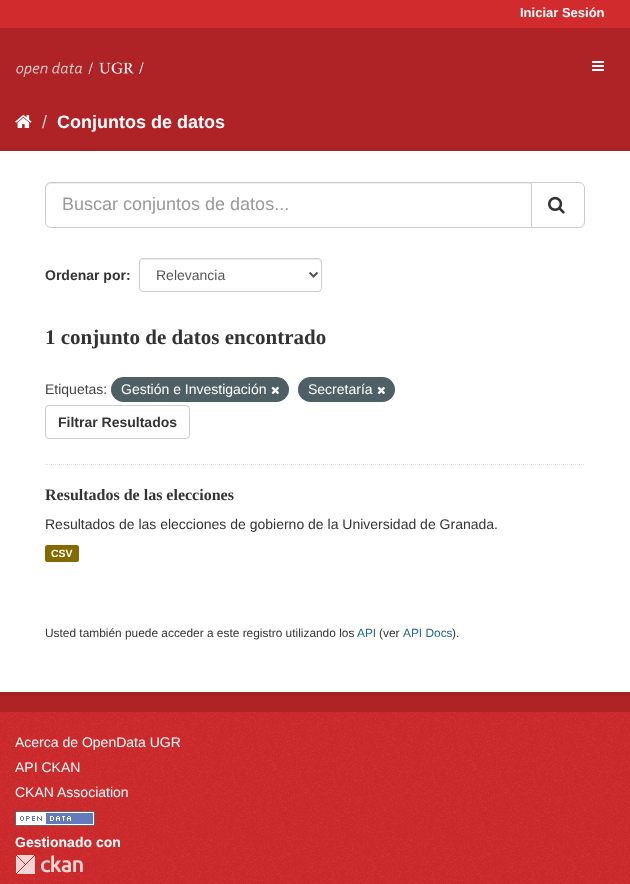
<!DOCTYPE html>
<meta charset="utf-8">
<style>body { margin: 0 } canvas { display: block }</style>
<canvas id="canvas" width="630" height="884"></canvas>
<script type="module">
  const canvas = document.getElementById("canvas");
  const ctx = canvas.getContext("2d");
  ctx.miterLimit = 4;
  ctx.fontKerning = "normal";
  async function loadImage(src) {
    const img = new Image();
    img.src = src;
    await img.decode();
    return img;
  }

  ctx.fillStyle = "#d12b2e";
  ctx.fillRect(0, 0, 630, 884);
  ctx.font = "bold 13px Liberation Sans";
  ctx.fillStyle = "#ffffff";
  ctx.fillText("Iniciar Sesión", 520, 17);
  ctx.fillStyle = "#af2326";
  ctx.fillRect(0, 28, 630, 684);
  ctx.drawImage(await loadImage("img1.png"), 16, 61, 128, 16);
  ctx.drawImage(await loadImage("img2.png"), 592, 61, 12, 10);
  ctx.drawImage(await loadImage("img3.png"), 15, 115, 17, 13);
  ctx.font = "18px Liberation Sans";
  ctx.fillStyle = "#cccccc";
  ctx.fillText("/", 42, 128);
  ctx.font = "bold 18px Liberation Sans";
  ctx.fillStyle = "#ffffff";
  ctx.fillText("Conjuntos de datos", 57, 128);
  ctx.strokeStyle = "#a62124";
  ctx.lineWidth = 4;
  ctx.strokeRect(-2, 149, 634, 545);
  ctx.fillRect(0, 151, 630, 541);
  ctx.beginPath();
  ctx.moveTo(45, 464.5);
  ctx.lineTo(585, 464.5);
  ctx.strokeStyle = "#dddddd";
  ctx.lineWidth = 1;
  ctx.setLineDash([1, 1]);
  ctx.stroke();
  ctx.fillStyle = "#ececec";
  ctx.beginPath();
  ctx.moveTo(51, 184);
  ctx.lineTo(531, 184);
  ctx.lineTo(531, 183);
  ctx.lineTo(51, 183);
  ctx.bezierCurveTo(48, 183, 46, 185, 46, 188);
  ctx.lineTo(46, 189);
  ctx.bezierCurveTo(46, 186, 48, 184, 51, 184);
  ctx.closePath();
  ctx.fill();
  ctx.beginPath();
  ctx.roundRect(45.5, 182.5, 486, 45, [5.5, 0, 0, 5.5]);
  ctx.strokeStyle = "#cccccc";
  ctx.setLineDash([]);
  ctx.stroke();
  ctx.font = "18px Liberation Sans";
  ctx.fillStyle = "#999999";
  ctx.fillText("Buscar conjuntos de datos...", 62, 210);
  ctx.fillStyle = "#ffffff";
  ctx.beginPath();
  ctx.roundRect(531.5, 182.5, 53, 45, [0, 5.5, 5.5, 0]);
  ctx.fill();
  ctx.stroke();
  ctx.drawImage(await loadImage("img4.png"), 548, 196, 17, 18);
  ctx.font = "bold 14px Liberation Sans";
  ctx.fillStyle = "#333333";
  ctx.fillText("Ordenar por:", 45, 280);
  ctx.fillStyle = "#ececec";
  ctx.beginPath();
  ctx.moveTo(143, 260);
  ctx.lineTo(319, 260);
  ctx.lineTo(320, 261);
  ctx.lineTo(321, 263);
  ctx.lineTo(321, 262);
  ctx.bezierCurveTo(321, 260, 320, 259, 318, 259);
  ctx.lineTo(143, 259);
  ctx.bezierCurveTo(141, 259, 140, 260, 140, 262);
  ctx.lineTo(140, 263);
  ctx.bezierCurveTo(140, 261, 141, 260, 143, 260);
  ctx.closePath();
  ctx.fill();
  ctx.beginPath();
  ctx.roundRect(139.5, 258.5, 182, 33, 3.5);
  ctx.stroke();
  ctx.beginPath();
  ctx.moveTo(309.5, 272.5);
  ctx.lineTo(313.5, 276.5);
  ctx.lineTo(317.5, 272.5);
  ctx.strokeStyle = "#555555";
  ctx.lineWidth = 2;
  ctx.stroke();
  ctx.font = "14px Liberation Sans";
  ctx.fillStyle = "#555555";
  ctx.fillText("Relevancia", 156, 280);
  ctx.font = "bold 21px Liberation Serif";
  ctx.fillStyle = "#333333";
  ctx.fillText("1 conjunto de datos encontrado", 45, 344);
  ctx.font = "14px Liberation Sans";
  ctx.fillStyle = "#444444";
  ctx.fillText("Etiquetas:", 45, 394);
  ctx.fillStyle = "#4e5f65";
  ctx.beginPath();
  ctx.roundRect(111, 377, 178, 25, 12.5);
  ctx.fill();
  ctx.fillStyle = "#ffffff";
  ctx.fillText("Gestión e Investigación", 121, 394);
  ctx.drawImage(await loadImage("img5.png"), 271, 386, 8, 9);
  ctx.fillStyle = "#4e5f65";
  ctx.beginPath();
  ctx.roundRect(298, 377, 97, 25, 12.5);
  ctx.fill();
  ctx.fillStyle = "#ffffff";
  ctx.fillText("Secretaría", 308, 394);
  ctx.drawImage(await loadImage("img5.png"), 377, 386, 8, 9);
  ctx.beginPath();
  ctx.roundRect(45.5, 405.5, 144, 33, 3.5);
  ctx.strokeStyle = "#cccccc";
  ctx.lineWidth = 1;
  ctx.stroke();
  ctx.font = "bold 14px Liberation Sans";
  ctx.fillStyle = "#333333";
  ctx.fillText("Filtrar Resultados", 58, 427);
  ctx.font = "bold 16px Liberation Serif";
  ctx.fillText("Resultados de las elecciones", 45, 500);
  ctx.font = "14px Liberation Sans";
  ctx.fillText("Resultados de las elecciones de gobierno de la Universidad de Granada.", 45, 529);
  ctx.fillStyle = "#856a00";
  ctx.beginPath();
  ctx.roundRect(45, 545, 34, 17, 2.5);
  ctx.fill();
  ctx.font = "bold 10.5px Liberation Sans";
  ctx.fillStyle = "#ffffff";
  ctx.fillText("CSV", 51, 557);
  ctx.font = "11.9px Liberation Sans";
  ctx.fillStyle = "#333333";
  ctx.fillText("Usted también puede acceder a este registro utilizando los", 45, 637);
  ctx.fillStyle = "#206b82";
  ctx.fillText("API", 357, 637);
  ctx.fillStyle = "#333333";
  ctx.fillText("(ver", 379, 637);
  ctx.fillStyle = "#206b82";
  ctx.fillText("API Docs", 403, 637);
  ctx.fillStyle = "#333333";
  ctx.fillText(").", 452, 637);
  ctx.drawImage(await loadImage("img6.png"), 0, 712, 630, 172);
  ctx.font = "14px Liberation Sans";
  ctx.fillStyle = "#ffffff";
  ctx.fillText("Acerca de OpenData UGR", 15, 747);
  ctx.fillText("API CKAN", 15, 772);
  ctx.fillText("CKAN Association", 15, 797);
  ctx.drawImage(await loadImage("img7.png"), 15, 811, 80, 15);
  ctx.font = "bold 14px Liberation Sans";
  ctx.fillText("Gestionado con", 15, 847);
  ctx.drawImage(await loadImage("img8.png"), 16, 855, 67, 19);
</script>
